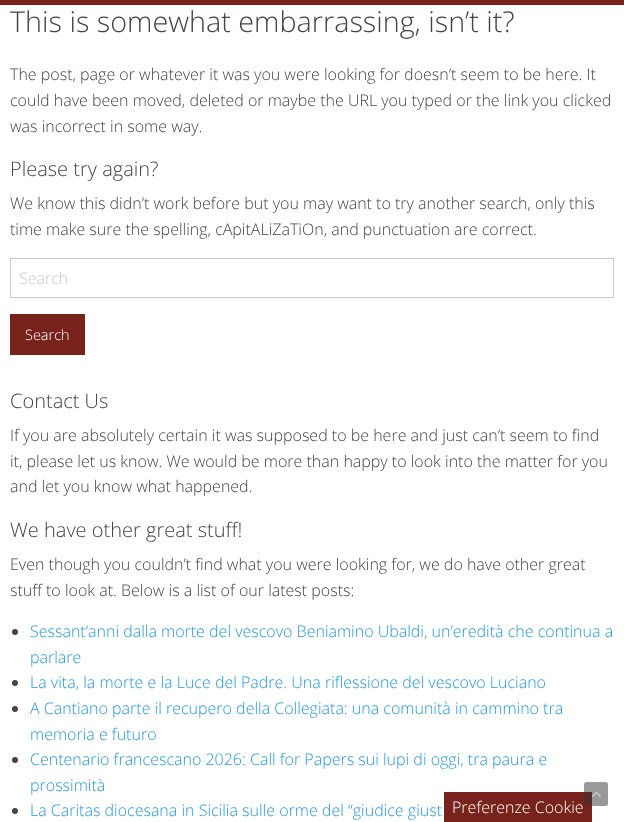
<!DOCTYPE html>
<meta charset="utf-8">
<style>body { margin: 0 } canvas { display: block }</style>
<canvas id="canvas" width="624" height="822"></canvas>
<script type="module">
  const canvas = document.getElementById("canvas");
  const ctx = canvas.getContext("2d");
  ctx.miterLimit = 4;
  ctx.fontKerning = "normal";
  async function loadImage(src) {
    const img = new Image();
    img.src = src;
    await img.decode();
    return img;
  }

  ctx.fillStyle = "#ffffff";
  ctx.fillRect(0, 0, 624, 822);
  ctx.fillStyle = "#77231b";
  ctx.fillRect(0, 0, 624, 5);
  ctx.font = "300 28.75px Open Sans";
  ctx.fillStyle = "#444444";
  ctx.fillText("This is somewhat embarrassing, isn’t it?", 10, 32);
  ctx.font = "300 16px Open Sans";
  ctx.fillText("The post, page or whatever it was you were looking for doesn’t seem to be here. It", 10, 80);
  ctx.fillText("could have been moved, deleted or maybe the URL you typed or the link you clicked", 10, 106);
  ctx.fillText("was incorrect in some way.", 10, 132);
  ctx.font = "300 20px Open Sans";
  ctx.fillText("Please try again?", 10, 176);
  ctx.font = "300 16px Open Sans";
  ctx.fillText("We know this didn’t work before but you may want to try another search, only this", 10, 209);
  ctx.fillText("time make sure the spelling, cApitALiZaTiOn, and punctuation are correct.", 10, 235);
  ctx.strokeStyle = "#cacaca";
  ctx.strokeRect(10.5, 258.5, 603, 39);
  ctx.fillStyle = "#cacaca";
  ctx.fillText("Search", 19, 284);
  ctx.fillStyle = "#77231b";
  ctx.fillRect(10, 314, 75, 41);
  ctx.font = "300 14.5px Open Sans";
  ctx.fillStyle = "#ffffff";
  ctx.fillText("Search", 25, 340);
  ctx.font = "300 20px Open Sans";
  ctx.fillStyle = "#444444";
  ctx.fillText("Contact Us", 10, 408);
  ctx.font = "300 16px Open Sans";
  ctx.fillText("If you are absolutely certain it was supposed to be here and just can’t seem to find", 10, 441);
  ctx.fillText("it, please let us know. We would be more than happy to look into the matter for you", 10, 467);
  ctx.fillText("and let you know what happened.", 10, 492);
  ctx.font = "300 20px Open Sans";
  ctx.fillText("We have other great stuff!", 10, 537);
  ctx.font = "300 16px Open Sans";
  ctx.fillText("Even though you couldn’t find what you were looking for, we do have other great", 10, 570);
  ctx.fillText("stuff to look at. Below is a list of our latest posts:", 10, 596);
  ctx.beginPath();
  ctx.arc(15, 632, 3, 0, Math.PI * 2);
  ctx.fill();
  ctx.fillStyle = "#2199e8";
  ctx.fillText("Sessant’anni dalla morte del vescovo Beniamino Ubaldi, un’eredità che continua a", 30, 637);
  ctx.fillText("parlare", 30, 663);
  ctx.fillStyle = "#444444";
  ctx.beginPath();
  ctx.arc(15, 683, 3, 0, Math.PI * 2);
  ctx.fill();
  ctx.fillStyle = "#2199e8";
  ctx.fillText("La vita, la morte e la Luce del Padre. Una riflessione del vescovo Luciano", 30, 688);
  ctx.fillStyle = "#444444";
  ctx.beginPath();
  ctx.arc(15, 709, 3, 0, Math.PI * 2);
  ctx.fill();
  ctx.fillStyle = "#2199e8";
  ctx.fillText("A Cantiano parte il recupero della Collegiata: una comunità in cammino tra", 30, 714);
  ctx.fillText("memoria e futuro", 30, 740);
  ctx.fillStyle = "#444444";
  ctx.beginPath();
  ctx.arc(15, 760, 3, 0, Math.PI * 2);
  ctx.fill();
  ctx.fillStyle = "#2199e8";
  ctx.fillText("Centenario francescano 2026: Call for Papers sui lupi di oggi, tra paura e", 30, 765);
  ctx.fillText("prossimità", 30, 791);
  ctx.fillStyle = "#444444";
  ctx.beginPath();
  ctx.arc(15, 811, 3, 0, Math.PI * 2);
  ctx.fill();
  ctx.fillStyle = "#2199e8";
  ctx.fillText("La Caritas diocesana in Sicilia sulle orme del “giudice giust", 30, 816);
  ctx.fillStyle = "#77231b";
  ctx.fillRect(444, 792, 148, 30);
  ctx.fillStyle = "#ffffff";
  ctx.fillText("Preferenze Cookie", 452, 813);
  ctx.fillStyle = "rgba(51, 51, 51, 0.5)";
  ctx.beginPath();
  ctx.roundRect(584, 782, 24, 24, 2.5);
  ctx.fill();
  ctx.drawImage(await loadImage("img1.png"), 592, 791, 9, 6);
</script>
